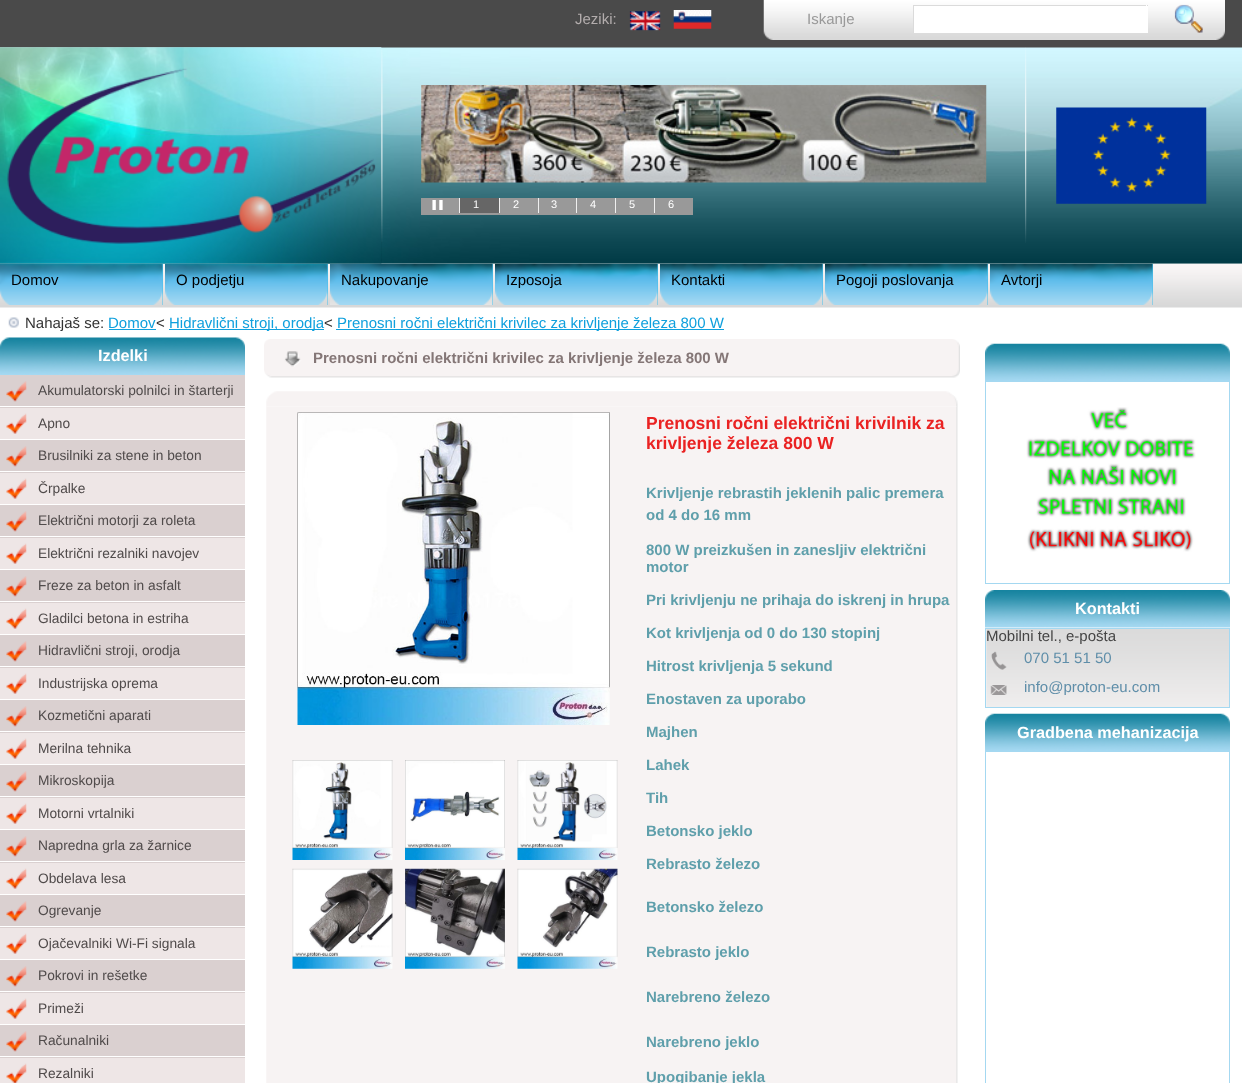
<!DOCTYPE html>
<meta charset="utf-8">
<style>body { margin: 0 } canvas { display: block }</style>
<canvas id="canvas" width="1242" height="1083"></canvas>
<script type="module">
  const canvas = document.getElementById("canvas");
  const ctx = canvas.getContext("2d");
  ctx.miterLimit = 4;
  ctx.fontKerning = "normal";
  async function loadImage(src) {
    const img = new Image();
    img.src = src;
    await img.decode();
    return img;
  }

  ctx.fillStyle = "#ffffff";
  ctx.fillRect(0, 0, 1242, 1083);
  ctx.fillStyle = "#4a4a4a";
  ctx.fillRect(0, 0, 1242, 48);
  ctx.font = "15px Liberation Sans";
  ctx.fillStyle = "#b3adad";
  ctx.fillText("Jeziki:", 575, 24);
  ctx.drawImage(await loadImage("img1.png"), 629, 11, 32, 20);
  ctx.drawImage(await loadImage("img2.png"), 673, 10, 39, 19);
  ctx.drawImage(await loadImage("img3.png"), 763, 0, 462, 40);
  ctx.fillStyle = "#999999";
  ctx.fillText("Iskanje", 807, 24);
  ctx.fillStyle = "#ffffff";
  ctx.fillRect(914, 6, 234, 27);
  ctx.fillStyle = "#dbdbdb";
  ctx.fillRect(913, 5, 235, 1);
  ctx.fillStyle = "#ffffff";
  ctx.fillRect(1146, 5, 1, 1);
  ctx.fillStyle = "#dbdbdb";
  ctx.fillRect(913, 5, 1, 28);
  ctx.drawImage(await loadImage("img4.png"), 1174, 4, 29, 29);
  ctx.drawImage(await loadImage("img5.png"), 0, 47, 1242, 217);
  ctx.drawImage(await loadImage("img6.png"), 0, 47, 382, 217);
  ctx.drawImage(await loadImage("img7.png"), 0, 47, 382, 217);
  ctx.drawImage(await loadImage("img8.png"), 381, 50, 2, 192);
  ctx.drawImage(await loadImage("img9.png"), 421, 85, 566, 98);
  ctx.fillStyle = "#999999";
  ctx.fillRect(421, 198, 272, 17);
  ctx.drawImage(await loadImage("img10.png"), 432, 200, 11, 10);
  ctx.fillStyle = "#666666";
  ctx.fillRect(460, 198, 39, 15);
  ctx.fillStyle = "#efefef";
  ctx.fillRect(499, 198, 1, 15);
  ctx.fillRect(459, 198, 1, 15);
  ctx.font = "11px Liberation Sans";
  ctx.fillStyle = "#ffffff";
  ctx.fillText("1", 473, 208);
  ctx.fillStyle = "#efefef";
  ctx.fillRect(538, 198, 1, 15);
  ctx.fillStyle = "#ffffff";
  ctx.fillText("2", 513, 208);
  ctx.fillStyle = "#efefef";
  ctx.fillRect(576, 198, 1, 15);
  ctx.fillStyle = "#ffffff";
  ctx.fillText("3", 551, 208);
  ctx.fillStyle = "#efefef";
  ctx.fillRect(615, 198, 1, 15);
  ctx.fillStyle = "#ffffff";
  ctx.fillText("4", 590, 208);
  ctx.fillStyle = "#efefef";
  ctx.fillRect(654, 198, 1, 15);
  ctx.fillStyle = "#ffffff";
  ctx.fillText("5", 629, 208);
  ctx.fillText("6", 668, 208);
  ctx.drawImage(await loadImage("img11.png"), 1025, 47, 2, 196);
  ctx.drawImage(await loadImage("img12.png"), 1056, 107, 151, 97);
  ctx.drawImage(await loadImage("img13.png"), 0, 263, 1242, 45);
  ctx.fillStyle = "#49c0ec";
  ctx.fillRect(162, 264, 1, 41);
  ctx.drawImage(await loadImage("img14.png"), 0, 263, 163, 42);
  ctx.font = "15px Liberation Sans";
  ctx.fillStyle = "#000000";
  ctx.fillText("Domov", 11, 285);
  ctx.fillStyle = "#49c0ec";
  ctx.fillRect(327, 264, 1, 41);
  ctx.drawImage(await loadImage("img15.png"), 165, 263, 163, 42);
  ctx.fillStyle = "#000000";
  ctx.fillText("O podjetju", 176, 285);
  ctx.fillStyle = "#49c0ec";
  ctx.fillRect(492, 264, 1, 41);
  ctx.drawImage(await loadImage("img16.png"), 330, 263, 163, 42);
  ctx.fillStyle = "#000000";
  ctx.fillText("Nakupovanje", 341, 285);
  ctx.fillStyle = "#49c0ec";
  ctx.fillRect(657, 264, 1, 41);
  ctx.drawImage(await loadImage("img17.png"), 495, 263, 163, 42);
  ctx.fillStyle = "#000000";
  ctx.fillText("Izposoja", 506, 285);
  ctx.fillStyle = "#49c0ec";
  ctx.fillRect(822, 264, 1, 41);
  ctx.drawImage(await loadImage("img18.png"), 660, 263, 163, 42);
  ctx.fillStyle = "#000000";
  ctx.fillText("Kontakti", 671, 285);
  ctx.fillStyle = "#49c0ec";
  ctx.fillRect(987, 264, 1, 41);
  ctx.drawImage(await loadImage("img19.png"), 825, 263, 163, 42);
  ctx.fillStyle = "#000000";
  ctx.fillText("Pogoji poslovanja", 836, 285);
  ctx.fillStyle = "#49c0ec";
  ctx.fillRect(1152, 264, 1, 41);
  ctx.drawImage(await loadImage("img20.png"), 990, 263, 163, 42);
  ctx.fillStyle = "#000000";
  ctx.fillText("Avtorji", 1001, 285);
  ctx.drawImage(await loadImage("img21.png"), 8, 317, 11, 11);
  ctx.fillStyle = "#333333";
  ctx.fillText("Nahajaš se:", 25, 328);
  ctx.fillStyle = "#0fa0dd";
  ctx.fillText("Domov", 108, 328);
  ctx.fillRect(109, 329, 47, 1);
  ctx.fillStyle = "#333333";
  ctx.fillText("<", 156, 328);
  ctx.fillStyle = "#0fa0dd";
  ctx.fillRect(169, 329, 155, 1);
  ctx.fillText("Hidravlični stroji, orodja", 169, 328);
  ctx.fillStyle = "#333333";
  ctx.fillText("<", 324, 328);
  ctx.fillStyle = "#0fa0dd";
  ctx.fillRect(336, 329, 388, 1);
  ctx.fillText("Prenosni ročni električni krivilec za krivljenje železa 800 W", 337, 328);
  ctx.drawImage(await loadImage("img22.png"), 0, 337, 245, 38);
  ctx.font = "bold 16.25px Liberation Sans";
  ctx.fillStyle = "#ffffff";
  ctx.fillText("Izdelki", 98, 361);
  ctx.fillStyle = "#dad0d0";
  ctx.fillRect(0, 375, 245, 33);
  ctx.drawImage(await loadImage("img23.png"), 6, 381, 21, 21);
  ctx.fillStyle = "#ffffff";
  ctx.fillRect(0, 406, 245, 1);
  ctx.font = "13.75px Liberation Sans";
  ctx.fillStyle = "#504b4b";
  ctx.fillText("Akumulatorski polnilci in štarterji", 38, 395);
  ctx.fillStyle = "#eee6e6";
  ctx.fillRect(0, 408, 245, 31);
  ctx.drawImage(await loadImage("img24.png"), 6, 413, 21, 21);
  ctx.fillStyle = "#504b4b";
  ctx.fillText("Apno", 38, 428);
  ctx.fillStyle = "#dad0d0";
  ctx.fillRect(0, 440, 245, 33);
  ctx.drawImage(await loadImage("img23.png"), 6, 446, 21, 21);
  ctx.fillStyle = "#ffffff";
  ctx.fillRect(0, 471, 245, 1);
  ctx.fillStyle = "#504b4b";
  ctx.fillText("Brusilniki za stene in beton", 38, 460);
  ctx.fillStyle = "#eee6e6";
  ctx.fillRect(0, 473, 245, 31);
  ctx.drawImage(await loadImage("img24.png"), 6, 478, 21, 21);
  ctx.fillStyle = "#504b4b";
  ctx.fillText("Črpalke", 38, 493);
  ctx.fillStyle = "#dad0d0";
  ctx.fillRect(0, 505, 245, 33);
  ctx.drawImage(await loadImage("img23.png"), 6, 511, 21, 21);
  ctx.fillStyle = "#ffffff";
  ctx.fillRect(0, 536, 245, 1);
  ctx.fillStyle = "#504b4b";
  ctx.fillText("Električni motorji za roleta", 38, 525);
  ctx.fillStyle = "#eee6e6";
  ctx.fillRect(0, 538, 245, 31);
  ctx.drawImage(await loadImage("img24.png"), 6, 543, 21, 21);
  ctx.fillStyle = "#504b4b";
  ctx.fillText("Električni rezalniki navojev", 38, 558);
  ctx.fillStyle = "#dad0d0";
  ctx.fillRect(0, 570, 245, 33);
  ctx.drawImage(await loadImage("img25.png"), 6, 576, 21, 21);
  ctx.fillStyle = "#ffffff";
  ctx.fillRect(0, 601, 245, 1);
  ctx.fillStyle = "#504b4b";
  ctx.fillText("Freze za beton in asfalt", 38, 590);
  ctx.fillStyle = "#eee6e6";
  ctx.fillRect(0, 603, 245, 31);
  ctx.drawImage(await loadImage("img24.png"), 6, 608, 21, 21);
  ctx.fillStyle = "#504b4b";
  ctx.fillText("Gladilci betona in estriha", 38, 623);
  ctx.fillStyle = "#dad0d0";
  ctx.fillRect(0, 635, 245, 33);
  ctx.drawImage(await loadImage("img23.png"), 6, 641, 21, 21);
  ctx.fillStyle = "#ffffff";
  ctx.fillRect(0, 666, 245, 1);
  ctx.fillStyle = "#504b4b";
  ctx.fillText("Hidravlični stroji, orodja", 38, 655);
  ctx.fillStyle = "#eee6e6";
  ctx.fillRect(0, 668, 245, 31);
  ctx.drawImage(await loadImage("img24.png"), 6, 673, 21, 21);
  ctx.fillStyle = "#504b4b";
  ctx.fillText("Industrijska oprema", 38, 688);
  ctx.fillStyle = "#dad0d0";
  ctx.fillRect(0, 700, 245, 33);
  ctx.drawImage(await loadImage("img23.png"), 6, 706, 21, 21);
  ctx.fillStyle = "#ffffff";
  ctx.fillRect(0, 731, 245, 1);
  ctx.fillStyle = "#504b4b";
  ctx.fillText("Kozmetični aparati", 38, 720);
  ctx.fillStyle = "#eee6e6";
  ctx.fillRect(0, 733, 245, 31);
  ctx.drawImage(await loadImage("img24.png"), 6, 738, 21, 21);
  ctx.fillStyle = "#504b4b";
  ctx.fillText("Merilna tehnika", 38, 753);
  ctx.fillStyle = "#dad0d0";
  ctx.fillRect(0, 765, 245, 33);
  ctx.drawImage(await loadImage("img23.png"), 6, 771, 21, 21);
  ctx.fillStyle = "#ffffff";
  ctx.fillRect(0, 796, 245, 1);
  ctx.fillStyle = "#504b4b";
  ctx.fillText("Mikroskopija", 38, 785);
  ctx.fillStyle = "#eee6e6";
  ctx.fillRect(0, 798, 245, 31);
  ctx.drawImage(await loadImage("img24.png"), 6, 803, 21, 21);
  ctx.fillStyle = "#504b4b";
  ctx.fillText("Motorni vrtalniki", 38, 818);
  ctx.fillStyle = "#dad0d0";
  ctx.fillRect(0, 830, 245, 33);
  ctx.drawImage(await loadImage("img23.png"), 6, 836, 21, 21);
  ctx.fillStyle = "#ffffff";
  ctx.fillRect(0, 861, 245, 1);
  ctx.fillStyle = "#504b4b";
  ctx.fillText("Napredna grla za žarnice", 38, 850);
  ctx.fillStyle = "#eee6e6";
  ctx.fillRect(0, 863, 245, 31);
  ctx.drawImage(await loadImage("img24.png"), 6, 868, 21, 21);
  ctx.fillStyle = "#504b4b";
  ctx.fillText("Obdelava lesa", 38, 883);
  ctx.fillStyle = "#dad0d0";
  ctx.fillRect(0, 895, 245, 33);
  ctx.drawImage(await loadImage("img23.png"), 6, 901, 21, 21);
  ctx.fillStyle = "#ffffff";
  ctx.fillRect(0, 926, 245, 1);
  ctx.fillStyle = "#504b4b";
  ctx.fillText("Ogrevanje", 38, 915);
  ctx.fillStyle = "#eee6e6";
  ctx.fillRect(0, 928, 245, 31);
  ctx.drawImage(await loadImage("img24.png"), 6, 933, 21, 21);
  ctx.fillStyle = "#504b4b";
  ctx.fillText("Ojačevalniki Wi-Fi signala", 38, 948);
  ctx.fillStyle = "#dad0d0";
  ctx.fillRect(0, 960, 245, 33);
  ctx.drawImage(await loadImage("img23.png"), 6, 966, 21, 21);
  ctx.fillStyle = "#ffffff";
  ctx.fillRect(0, 991, 245, 1);
  ctx.fillStyle = "#504b4b";
  ctx.fillText("Pokrovi in rešetke", 38, 980);
  ctx.fillStyle = "#eee6e6";
  ctx.fillRect(0, 993, 245, 31);
  ctx.drawImage(await loadImage("img24.png"), 6, 998, 21, 21);
  ctx.fillStyle = "#504b4b";
  ctx.fillText("Primeži", 38, 1013);
  ctx.fillStyle = "#dad0d0";
  ctx.fillRect(0, 1025, 245, 33);
  ctx.drawImage(await loadImage("img23.png"), 6, 1031, 21, 21);
  ctx.fillStyle = "#ffffff";
  ctx.fillRect(0, 1056, 245, 1);
  ctx.fillStyle = "#504b4b";
  ctx.fillText("Računalniki", 38, 1045);
  ctx.fillStyle = "#eee6e6";
  ctx.fillRect(0, 1058, 245, 25);
  ctx.drawImage(await loadImage("img26.png"), 6, 1063, 21, 20);
  ctx.fillStyle = "#504b4b";
  ctx.fillText("Rezalniki", 38, 1078);
  ctx.drawImage(await loadImage("img27.png"), 264, 339, 696, 39);
  ctx.font = "bold 15px Liberation Sans";
  ctx.fillStyle = "#847676";
  ctx.fillText("Prenosni ročni električni krivilec za krivljenje železa 800 W", 313, 363);
  ctx.drawImage(await loadImage("img28.png"), 266, 391, 692, 16);
  ctx.drawImage(await loadImage("img29.png"), 266, 406, 692, 677);
  ctx.drawImage(await loadImage("img30.png"), 297, 412, 313, 313);
  ctx.drawImage(await loadImage("img31.png"), 292, 760, 101, 100);
  ctx.drawImage(await loadImage("img32.png"), 405, 760, 100, 100);
  ctx.drawImage(await loadImage("img33.png"), 517, 760, 101, 100);
  ctx.drawImage(await loadImage("img34.png"), 292, 868, 101, 101);
  ctx.drawImage(await loadImage("img35.png"), 405, 868, 100, 101);
  ctx.drawImage(await loadImage("img36.png"), 517, 868, 101, 101);
  ctx.font = "bold 17.5px Liberation Sans";
  ctx.fillStyle = "#ea2222";
  ctx.fillText("Prenosni ročni električni krivilnik za", 646, 429);
  ctx.fillText("krivljenje železa 800 W", 646, 449);
  ctx.font = "bold 15px Liberation Sans";
  ctx.fillStyle = "#5f9fab";
  ctx.fillText("Krivljenje rebrastih jeklenih palic premera", 646, 498);
  ctx.fillText("od 4 do 16 mm", 646, 520);
  ctx.fillText("800 W preizkušen in zanesljiv električni", 646, 555);
  ctx.fillText("motor", 646, 572);
  ctx.fillText("Pri krivljenju ne prihaja do iskrenj in hrupa", 646, 605);
  ctx.fillText("Kot krivljenja od 0 do 130 stopinj", 646, 638);
  ctx.fillText("Hitrost krivljenja 5 sekund", 646, 671);
  ctx.fillText("Enostaven za uporabo", 646, 704);
  ctx.fillText("Majhen", 646, 737);
  ctx.fillText("Lahek", 646, 770);
  ctx.fillText("Tih", 646, 803);
  ctx.fillText("Betonsko jeklo", 646, 836);
  ctx.fillText("Rebrasto železo", 646, 869);
  ctx.fillText("Betonsko železo", 646, 912);
  ctx.fillText("Rebrasto jeklo", 646, 957);
  ctx.fillText("Narebreno železo", 646, 1002);
  ctx.fillText("Narebreno jeklo", 646, 1047);
  ctx.fillText("Upogibanje jekla", 646, 1082);
  ctx.drawImage(await loadImage("img37.png"), 985, 343, 245, 38);
  ctx.strokeStyle = "#a4d8f1";
  ctx.strokeRect(985.5, 381.5, 244, 202);
  ctx.drawImage(await loadImage("img38.png"), 1026, 407, 170, 145);
  ctx.drawImage(await loadImage("img39.png"), 985, 590, 245, 38);
  ctx.font = "bold 16.25px Liberation Sans";
  ctx.fillStyle = "#ffffff";
  ctx.fillText("Kontakti", 1075, 614);
  ctx.drawImage(await loadImage("img40.png"), 986, 629, 243, 78);
  ctx.strokeRect(985.5, 628.5, 244, 79);
  ctx.font = "15px Liberation Sans";
  ctx.fillStyle = "#454545";
  ctx.fillText("Mobilni tel., e-pošta", 986, 641);
  ctx.drawImage(await loadImage("img41.png"), 991, 651, 16, 19);
  ctx.fillStyle = "#5f8ea9";
  ctx.fillText("070 51 51 50", 1024, 663);
  ctx.drawImage(await loadImage("img42.png"), 990, 685, 17, 10);
  ctx.fillText("info@proton-eu.com", 1024, 692);
  ctx.drawImage(await loadImage("img37.png"), 985, 713, 245, 38);
  ctx.font = "bold 16.25px Liberation Sans";
  ctx.fillStyle = "#ffffff";
  ctx.fillText("Gradbena mehanizacija", 1017, 738);
  ctx.strokeRect(985.5, 751.5, 244, 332);
</script>
